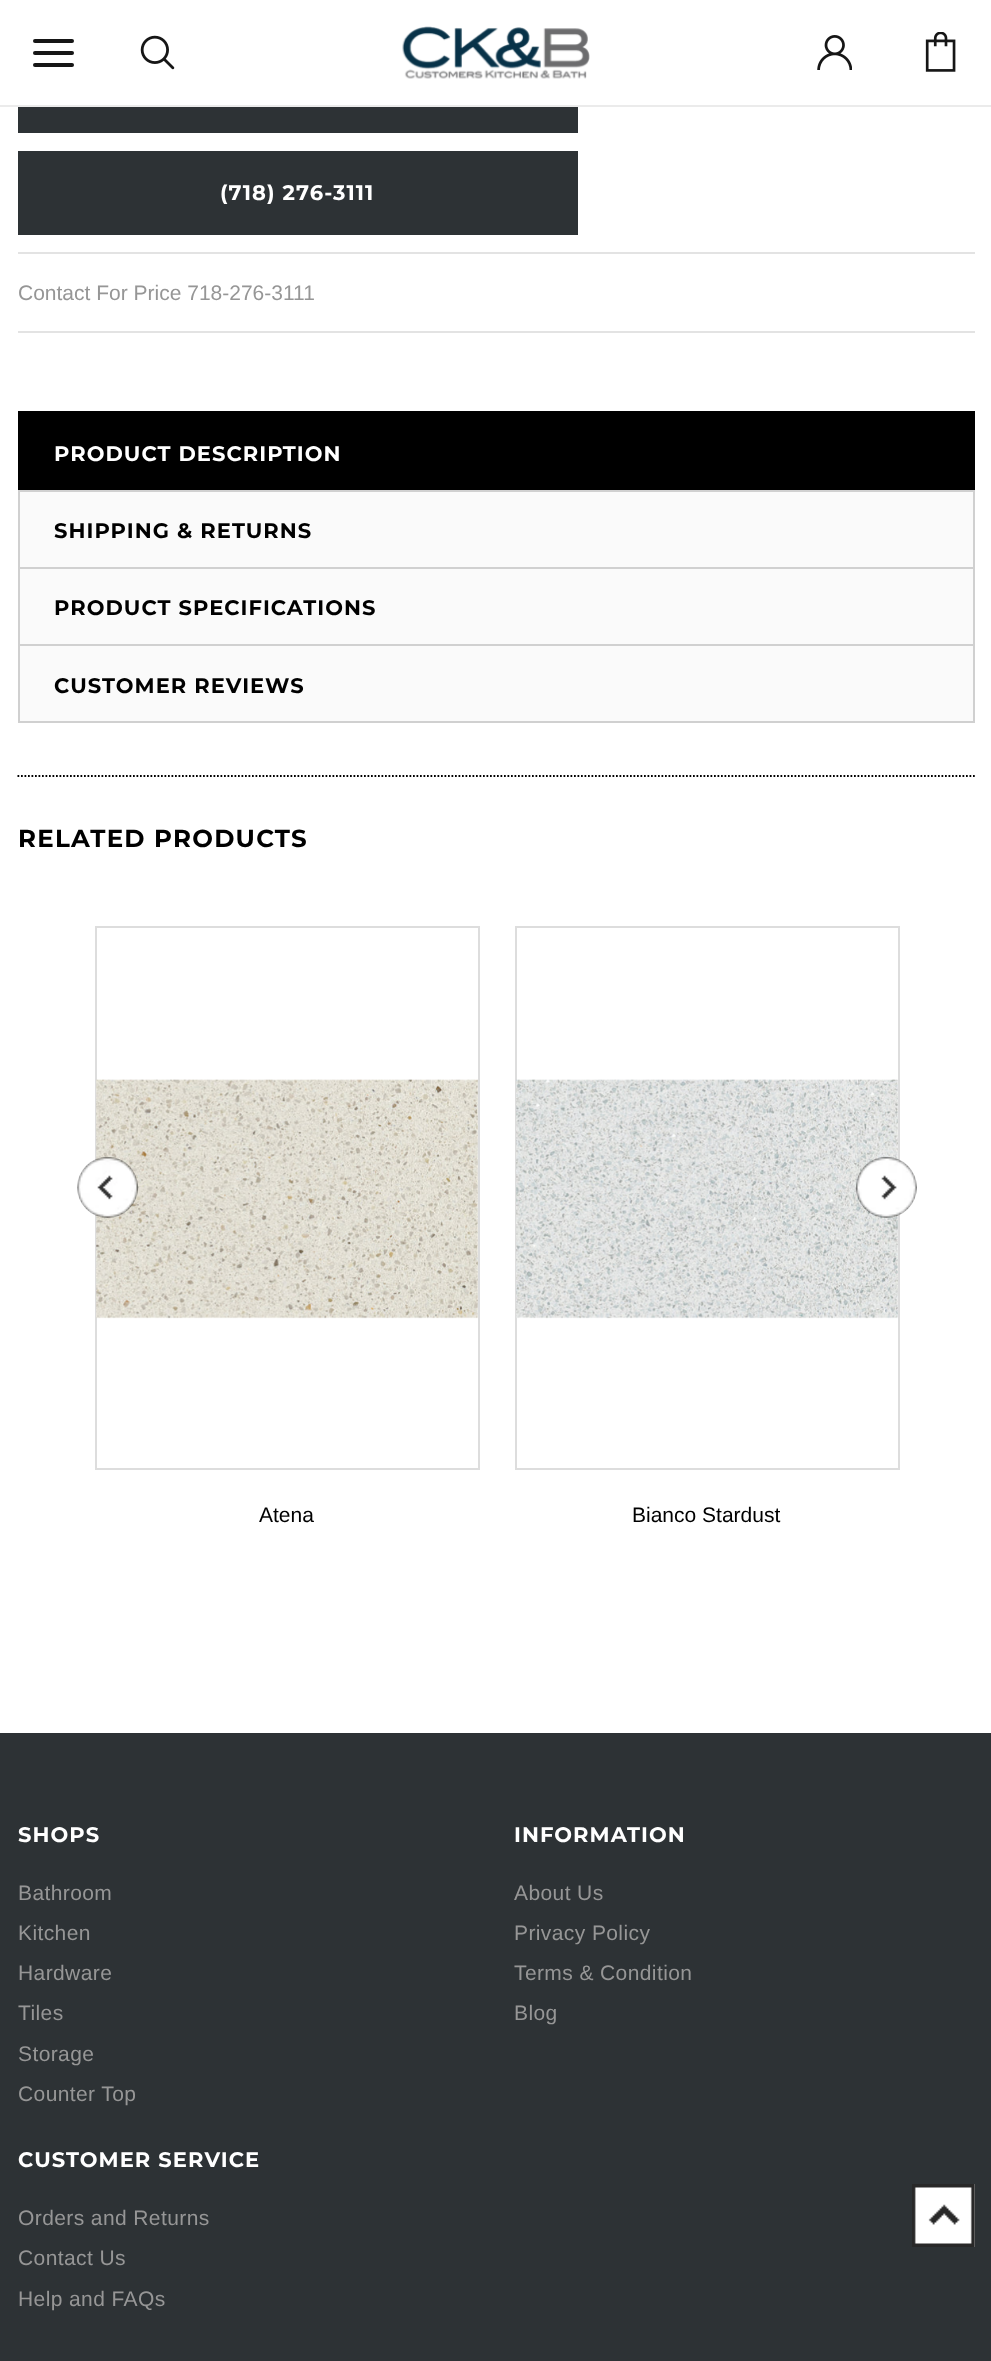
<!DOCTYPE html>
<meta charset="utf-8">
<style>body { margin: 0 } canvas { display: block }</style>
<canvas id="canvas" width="991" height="2361"></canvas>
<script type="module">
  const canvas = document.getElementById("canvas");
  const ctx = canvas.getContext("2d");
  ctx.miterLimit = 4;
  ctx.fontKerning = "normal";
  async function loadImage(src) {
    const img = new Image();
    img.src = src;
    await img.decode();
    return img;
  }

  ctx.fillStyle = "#ffffff";
  ctx.fillRect(0, 0, 991, 2361);
  ctx.fillStyle = "#ebebeb";
  ctx.fillRect(0, 105, 991, 2);
  ctx.fillStyle = "#161616";
  ctx.beginPath();
  ctx.roundRect(33, 51, 41, 4, 2);
  ctx.fill();
  ctx.beginPath();
  ctx.roundRect(33, 39, 41, 4, 2);
  ctx.fill();
  ctx.beginPath();
  ctx.roundRect(33, 63, 41, 4, 2);
  ctx.fill();
  ctx.drawImage(await loadImage("img1.png"), 140, 35, 35, 35);
  ctx.drawImage(await loadImage("img2.png"), 402, 26, 188, 53);
  ctx.drawImage(await loadImage("img3.png"), 817, 35, 35, 35);
  ctx.drawImage(await loadImage("img4.png"), 925, 32, 31, 40);
  ctx.fillStyle = "#2d3235";
  ctx.fillRect(18, 107, 560, 26);
  ctx.fillRect(18, 151, 560, 84);
  ctx.letterSpacing = "1.05px";
  ctx.font = "bold 21px Montserrat";
  ctx.fillStyle = "#ffffff";
  ctx.fillText("(718) 276-3111", 220, 200);
  ctx.fillStyle = "#e3e3e3";
  ctx.fillRect(18, 252, 957, 2);
  ctx.fillRect(18, 331, 957, 2);
  ctx.letterSpacing = "0px";
  ctx.font = "21px Arimo";
  ctx.fillStyle = "#969696";
  ctx.fillText("Contact For Price 718-276-3111", 18, 300);
  ctx.fillStyle = "#d0d0d0";
  ctx.fillRect(18, 721, 957, 2);
  ctx.fillStyle = "#000000";
  ctx.fillRect(18, 411, 957, 79);
  ctx.letterSpacing = "1.05px";
  ctx.font = "bold 21px Montserrat";
  ctx.fillStyle = "#ffffff";
  ctx.fillText("PRODUCT DESCRIPTION", 54, 461);
  ctx.fillStyle = "#fafafa";
  ctx.fillRect(20, 492, 953, 75);
  ctx.fillStyle = "#d0d0d0";
  ctx.fillRect(18, 490, 957, 2);
  ctx.fillRect(973, 490, 2, 77);
  ctx.fillRect(18, 490, 2, 77);
  ctx.fillStyle = "#000000";
  ctx.fillText("SHIPPING & RETURNS", 54, 538);
  ctx.fillStyle = "#fafafa";
  ctx.fillRect(20, 569, 953, 75);
  ctx.fillStyle = "#d0d0d0";
  ctx.fillRect(18, 567, 957, 2);
  ctx.fillRect(973, 567, 2, 77);
  ctx.fillRect(18, 567, 2, 77);
  ctx.fillStyle = "#000000";
  ctx.fillText("PRODUCT SPECIFICATIONS", 54, 615);
  ctx.fillStyle = "#fafafa";
  ctx.fillRect(20, 646, 953, 75);
  ctx.fillStyle = "#d0d0d0";
  ctx.fillRect(18, 644, 957, 2);
  ctx.fillRect(973, 644, 2, 77);
  ctx.fillRect(18, 644, 2, 77);
  ctx.fillStyle = "#000000";
  ctx.fillText("CUSTOMER REVIEWS", 54, 693);
  ctx.beginPath();
  ctx.moveTo(17.5, 776);
  ctx.lineTo(975, 776);
  ctx.strokeStyle = "#000000";
  ctx.lineWidth = 1.8;
  ctx.setLineDash([1.75, 1.75]);
  ctx.stroke();
  ctx.letterSpacing = "1.25px";
  ctx.font = "bold 24.5px Montserrat";
  ctx.fillText("RELATED PRODUCTS", 18, 847);
  ctx.strokeStyle = "#dddddd";
  ctx.lineWidth = 2;
  ctx.setLineDash([]);
  ctx.strokeRect(96, 927, 383, 542);
  ctx.drawImage(await loadImage("img7.png"), 96, 1079, 382, 240);
  ctx.drawImage(await loadImage("img5.png"), 77, 1156, 62, 62);
  ctx.strokeRect(516, 927, 383, 542);
  ctx.drawImage(await loadImage("img8.png"), 516, 1079, 382, 240);
  ctx.drawImage(await loadImage("img6.png"), 855, 1156, 62, 62);
  ctx.letterSpacing = "0px";
  ctx.font = "21px Arimo";
  ctx.fillText("Atena", 259, 1522);
  ctx.fillText("Bianco Stardust", 632, 1522);
  ctx.fillStyle = "#2d3235";
  ctx.fillRect(0, 1733, 991, 628);
  ctx.letterSpacing = "1.05px";
  ctx.font = "bold 21px Montserrat";
  ctx.fillStyle = "#ffffff";
  ctx.fillText("SHOPS", 18, 1842);
  ctx.letterSpacing = "0.4px";
  ctx.font = "21px Arimo";
  ctx.fillStyle = "#969696";
  ctx.fillText("Bathroom", 18, 1900);
  ctx.fillText("Kitchen", 18, 1940);
  ctx.fillText("Hardware", 18, 1980);
  ctx.fillText("Tiles", 18, 2020);
  ctx.fillText("Storage", 18, 2061);
  ctx.fillText("Counter Top", 18, 2101);
  ctx.letterSpacing = "1.05px";
  ctx.font = "bold 21px Montserrat";
  ctx.fillStyle = "#ffffff";
  ctx.fillText("INFORMATION", 514, 1842);
  ctx.letterSpacing = "0.4px";
  ctx.font = "21px Arimo";
  ctx.fillStyle = "#969696";
  ctx.fillText("About Us", 514, 1900);
  ctx.fillText("Privacy Policy", 514, 1940);
  ctx.fillText("Terms & Condition", 514, 1980);
  ctx.fillText("Blog", 514, 2020);
  ctx.letterSpacing = "1.05px";
  ctx.font = "bold 21px Montserrat";
  ctx.fillStyle = "#ffffff";
  ctx.fillText("CUSTOMER SERVICE", 18, 2167);
  ctx.letterSpacing = "0.4px";
  ctx.font = "21px Arimo";
  ctx.fillStyle = "#969696";
  ctx.fillText("Orders and Returns", 18, 2225);
  ctx.fillText("Contact Us", 18, 2265);
  ctx.fillText("Help and FAQs", 18, 2306);
  ctx.fillStyle = "#ffffff";
  ctx.fillRect(914, 2184, 61, 63);
  ctx.drawImage(await loadImage("img9.png"), 912, 2184, 63, 63);
</script>
